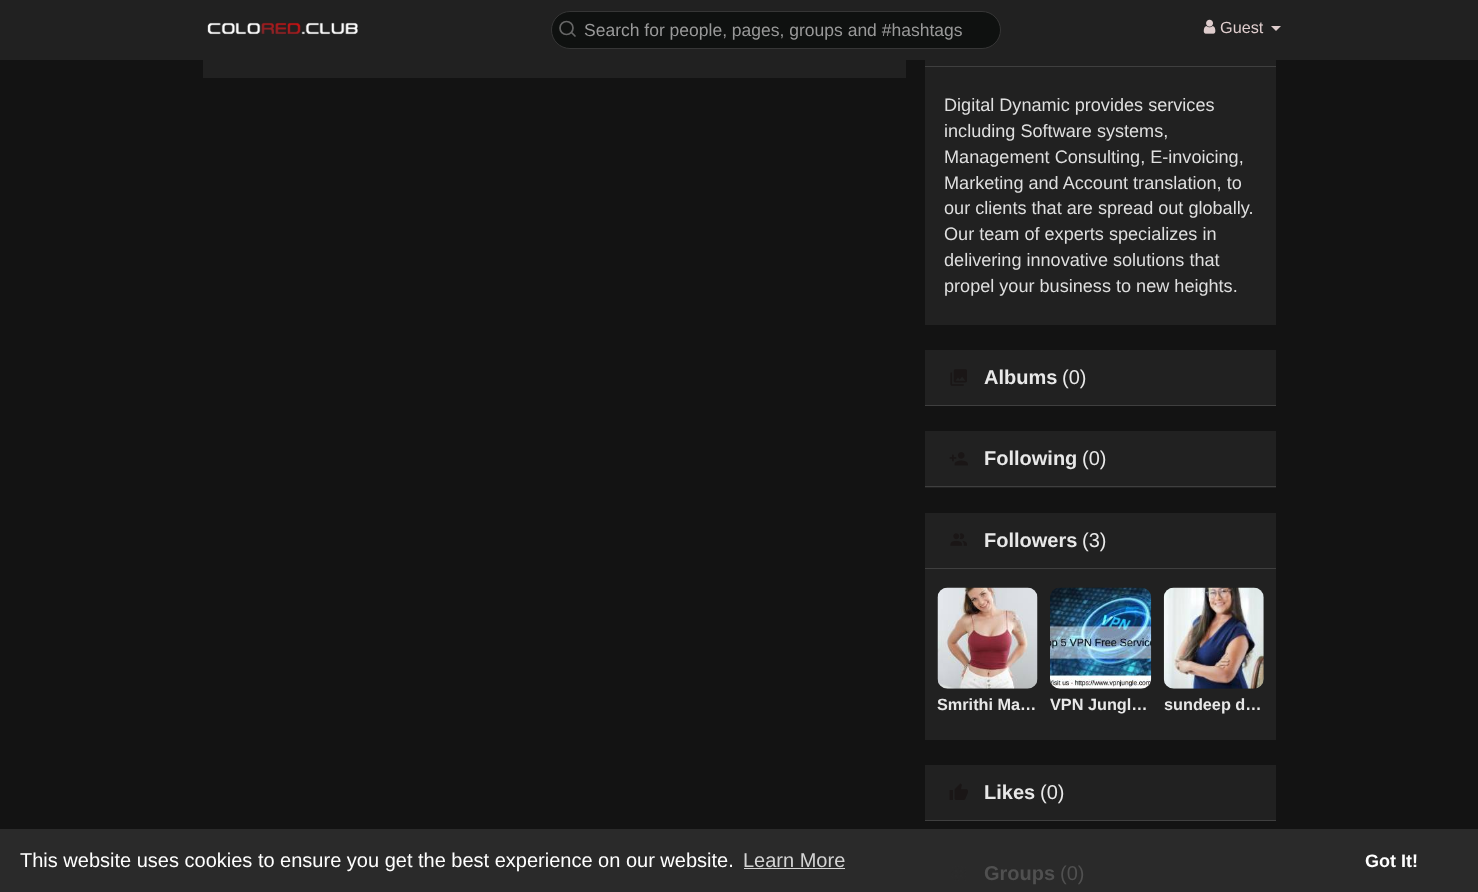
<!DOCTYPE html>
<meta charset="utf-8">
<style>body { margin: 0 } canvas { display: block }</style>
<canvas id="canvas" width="1478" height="892"></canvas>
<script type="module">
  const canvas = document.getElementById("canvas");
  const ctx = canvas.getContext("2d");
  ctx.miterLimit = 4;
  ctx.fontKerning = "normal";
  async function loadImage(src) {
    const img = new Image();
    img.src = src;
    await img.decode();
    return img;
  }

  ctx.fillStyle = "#131313";
  ctx.fillRect(0, 0, 1478, 892);
  ctx.fillStyle = "#2a2a2a";
  ctx.fillRect(0, 829, 1478, 63);
  ctx.fillStyle = "#212121";
  ctx.fillRect(0, 0, 1478, 60);
  ctx.drawImage(await loadImage("img1.png"), 207, 22, 151, 13);
  ctx.fillStyle = "#0f1110";
  ctx.beginPath();
  ctx.roundRect(551.5, 11.5, 449, 37, 18.5);
  ctx.fill();
  ctx.strokeStyle = "#363636";
  ctx.stroke();
  ctx.beginPath();
  ctx.arc(566.5, 28, 6.5, 0, Math.PI * 2);
  ctx.strokeStyle = "#666666";
  ctx.lineWidth = 1.7;
  ctx.stroke();
  ctx.beginPath();
  ctx.moveTo(575, 36);
  ctx.lineTo(571.5, 32.5);
  ctx.lineCap = "round";
  ctx.lineJoin = "round";
  ctx.stroke();
  ctx.font = "17.5px Liberation Sans";
  ctx.fillStyle = "#999999";
  ctx.fillText("Search for people, pages, groups and #hashtags", 584, 36);
  ctx.drawImage(await loadImage("img2.png"), 1203, 19, 13, 15);
  ctx.font = "16.25px Liberation Sans";
  ctx.fillStyle = "#dfcdcd";
  ctx.fillText("Guest", 1220, 33);
  ctx.beginPath();
  ctx.moveTo(1271, 26);
  ctx.lineTo(1281, 26);
  ctx.lineTo(1276, 31);
  ctx.closePath();
  ctx.fill();
  ctx.fillStyle = "#212121";
  ctx.fillRect(203, 60, 703, 18);
  ctx.fillRect(925, 60, 351, 265);
  ctx.fillStyle = "#3f3f3f";
  ctx.fillRect(925, 66, 351, 1);
  ctx.font = "18.1px Liberation Sans";
  ctx.fillStyle = "#dfdfdf";
  ctx.fillText("Digital Dynamic provides services", 944, 111);
  ctx.fillText("including Software systems,", 944, 137);
  ctx.fillText("Management Consulting, E-invoicing,", 944, 163);
  ctx.fillText("Marketing and Account translation, to", 944, 189);
  ctx.fillText("our clients that are spread out globally.", 944, 214);
  ctx.fillText("Our team of experts specializes in", 944, 240);
  ctx.fillText("delivering innovative solutions that", 944, 266);
  ctx.fillText("propel your business to new heights.", 944, 292);
  ctx.fillStyle = "#212121";
  ctx.fillRect(925, 350, 351, 55);
  ctx.fillStyle = "#3f3f3f";
  ctx.fillRect(925, 405, 351, 1);
  ctx.drawImage(await loadImage("img3.png"), 950, 369, 17, 17);
  ctx.font = "bold 20px Liberation Sans";
  ctx.fillStyle = "#e8e8e8";
  ctx.fillText("Albums", 984, 384);
  ctx.font = "20px Liberation Sans";
  ctx.fillText("(0)", 1062, 384);
  ctx.fillStyle = "#212121";
  ctx.fillRect(925, 431, 351, 57);
  ctx.fillStyle = "#3f3f3f";
  ctx.fillRect(925, 486, 351, 1);
  ctx.drawImage(await loadImage("img4.png"), 949, 452, 19, 14);
  ctx.font = "bold 20px Liberation Sans";
  ctx.fillStyle = "#e8e8e8";
  ctx.fillText("Following", 984, 465);
  ctx.font = "20px Liberation Sans";
  ctx.fillText("(0)", 1082, 465);
  ctx.fillStyle = "#212121";
  ctx.fillRect(925, 513, 351, 227);
  ctx.fillStyle = "#3f3f3f";
  ctx.fillRect(925, 568, 351, 1);
  ctx.drawImage(await loadImage("img5.png"), 950, 533, 17, 13);
  ctx.font = "bold 20px Liberation Sans";
  ctx.fillStyle = "#e8e8e8";
  ctx.fillText("Followers", 984, 547);
  ctx.font = "20px Liberation Sans";
  ctx.fillText("(3)", 1082, 547);
  ctx.drawImage(await loadImage("img6.png"), 937, 587, 101, 102);
  ctx.font = "bold 16.25px Liberation Sans";
  ctx.fillText("Smrithi Ma…", 937, 710);
  ctx.drawImage(await loadImage("img7.png"), 1050, 587, 102, 102);
  ctx.fillText("VPN Jungl…", 1050, 710);
  ctx.drawImage(await loadImage("img8.png"), 1163, 587, 101, 102);
  ctx.fillText("sundeep d…", 1164, 710);
  ctx.fillStyle = "#212121";
  ctx.fillRect(925, 765, 351, 55);
  ctx.fillStyle = "#3f3f3f";
  ctx.fillRect(925, 820, 351, 1);
  ctx.drawImage(await loadImage("img9.png"), 949, 783, 19, 17);
  ctx.font = "bold 20px Liberation Sans";
  ctx.fillStyle = "#e8e8e8";
  ctx.fillText("Likes", 984, 799);
  ctx.font = "20px Liberation Sans";
  ctx.fillText("(0)", 1040, 799);
  ctx.drawImage(await loadImage("img10.png"), 951, 866, 15, 15);
  ctx.font = "bold 20px Liberation Sans";
  ctx.fillStyle = "#505050";
  ctx.fillText("Groups", 984, 880);
  ctx.font = "20px Liberation Sans";
  ctx.fillText("(0)", 1060, 880);
  ctx.fillStyle = "#ffffff";
  ctx.fillText("This website uses cookies to ensure you get the best experience on our website.", 20, 867);
  ctx.fillStyle = "#d4d4d4";
  ctx.fillText("Learn More", 743, 867);
  ctx.fillRect(744, 868, 101, 1);
  ctx.font = "bold 18px Liberation Sans";
  ctx.fillStyle = "#ffffff";
  ctx.fillText("Got It!", 1365, 867);
</script>
